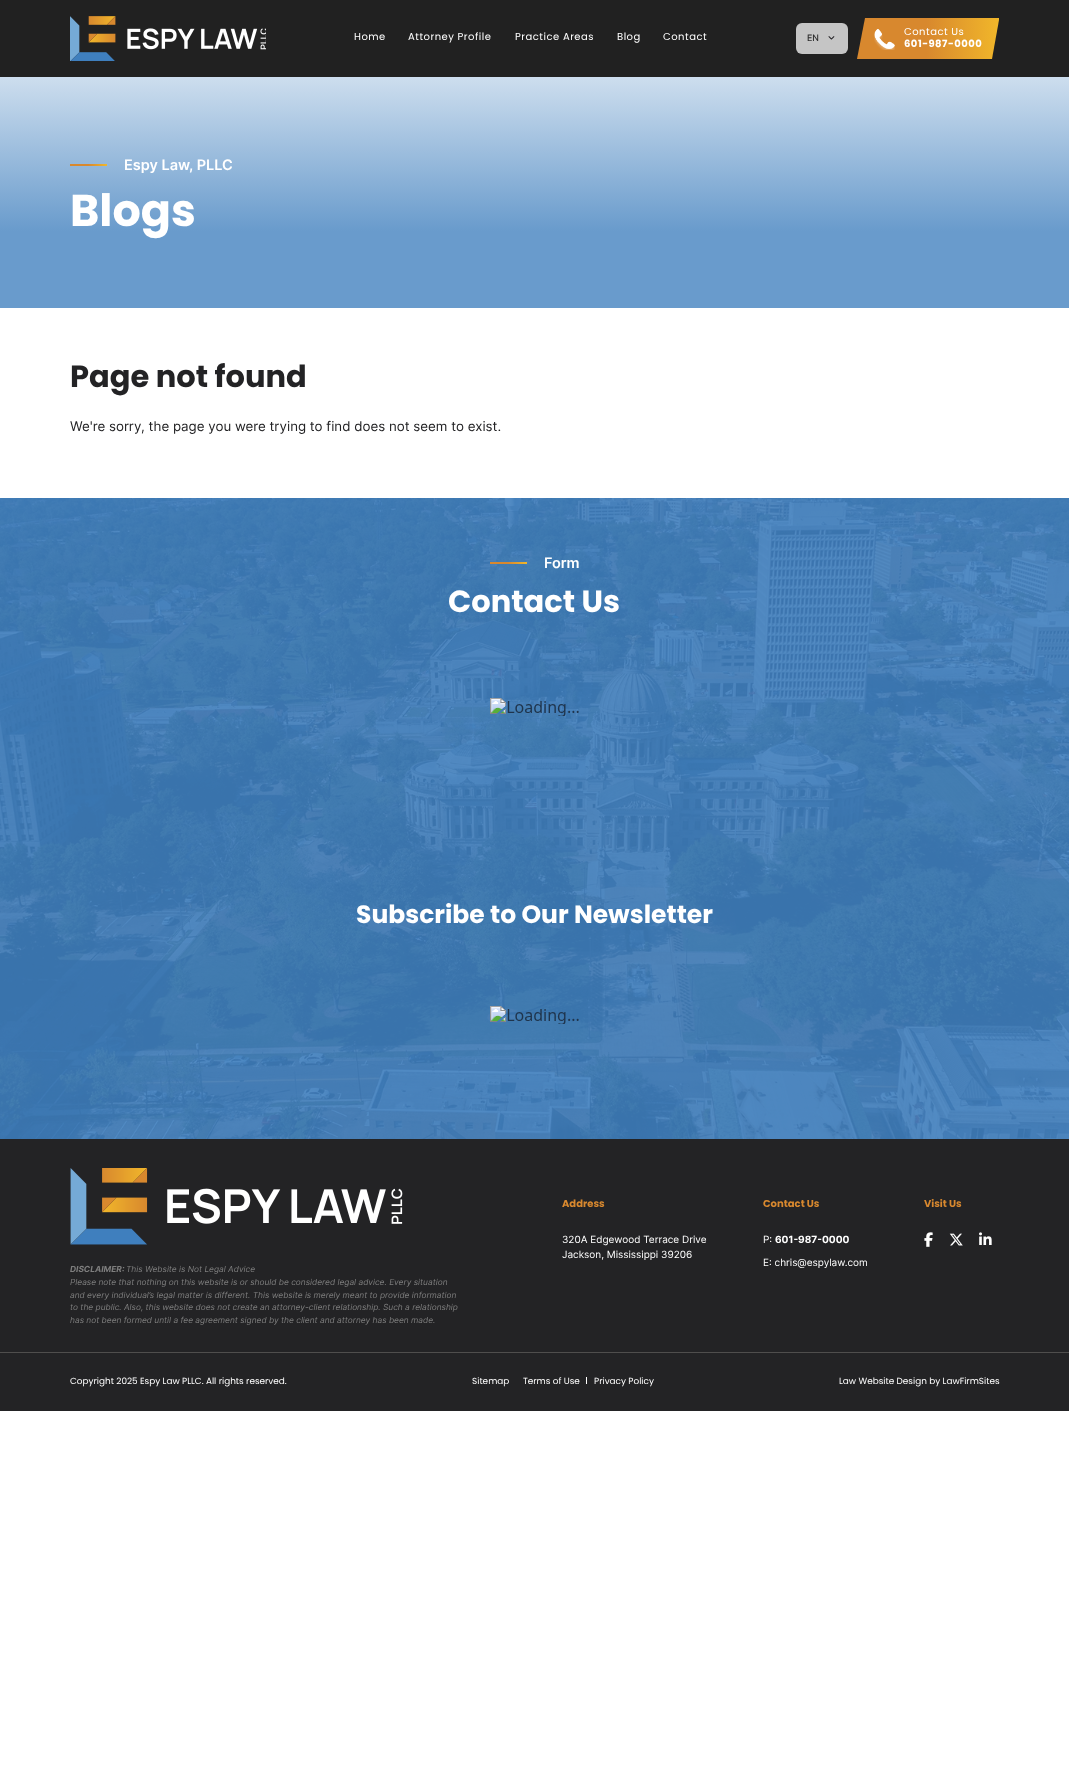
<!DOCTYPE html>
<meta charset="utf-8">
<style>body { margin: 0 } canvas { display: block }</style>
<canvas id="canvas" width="1069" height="1786"></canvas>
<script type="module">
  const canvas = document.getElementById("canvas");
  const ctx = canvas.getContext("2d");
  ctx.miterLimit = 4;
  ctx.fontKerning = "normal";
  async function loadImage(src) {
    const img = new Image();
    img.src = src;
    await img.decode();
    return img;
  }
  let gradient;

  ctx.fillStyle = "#ffffff";
  ctx.fillRect(0, 0, 1069, 1786);
  ctx.fillStyle = "#212121";
  ctx.fillRect(0, 0, 1069, 77);
  ctx.drawImage(await loadImage("img1.png"), 70, 16, 196, 45);
  ctx.letterSpacing = "0.5px";
  ctx.font = "10px Poppins";
  ctx.fillStyle = "#ffffff";
  ctx.fillText("Home", 354, 40);
  ctx.fillText("Attorney Profile", 408, 40);
  ctx.fillText("Practice Areas", 515, 40);
  ctx.fillText("Blog", 617, 40);
  ctx.fillText("Contact", 663, 40);
  ctx.fillStyle = "#c5c5c5";
  ctx.beginPath();
  ctx.roundRect(796, 23, 52, 31, 6);
  ctx.fill();
  ctx.letterSpacing = "0px";
  ctx.font = "500 8.9px Inter";
  ctx.fillStyle = "#2d2d2d";
  ctx.fillText("EN", 807, 41);
  ctx.drawImage(await loadImage("img2.png"), 828, 36, 7, 4);
  gradient = ctx.createLinearGradient(857, 39, 999, 38);
  gradient.addColorStop(0.49, "#d8882e");
  gradient.addColorStop(1, "#f1b72a");
  ctx.fillStyle = gradient;
  ctx.beginPath();
  ctx.moveTo(865, 18);
  ctx.lineTo(857, 59);
  ctx.lineTo(992, 59);
  ctx.lineTo(999, 20);
  ctx.lineTo(999, 18);
  ctx.closePath();
  ctx.fill();
  ctx.drawImage(await loadImage("img3.png"), 874, 29, 21, 21);
  ctx.letterSpacing = "0.5px";
  ctx.font = "10px Poppins";
  ctx.fillStyle = "#ffffff";
  ctx.fillText("Contact Us", 904, 35);
  ctx.font = "bold 10px Poppins";
  ctx.fillText("601-987-0000", 904, 47);
  gradient = ctx.createLinearGradient(535, 0, 535, 308);
  gradient.addColorStop(0, "#ffffff");
  gradient.addColorStop(0.75, "#699bcc");
  ctx.fillStyle = gradient;
  ctx.fillRect(0, 77, 1069, 231);
  gradient = ctx.createLinearGradient(70, 165, 107, 165);
  gradient.addColorStop(0.49, "#d8882e");
  gradient.addColorStop(1, "#f1b72a");
  ctx.fillStyle = gradient;
  ctx.fillRect(70, 164, 37, 2);
  ctx.letterSpacing = "0px";
  ctx.font = "600 14.5px Inter";
  ctx.fillStyle = "#ffffff";
  ctx.fillText("Espy Law, PLLC", 124, 170);
  ctx.font = "bold 44.5px Poppins";
  ctx.fillText("Blogs", 70, 226);
  ctx.font = "bold 30.5px Poppins";
  ctx.fillStyle = "#232325";
  ctx.fillText("Page not found", 70, 387);
  ctx.font = "13.35px Inter";
  ctx.fillText("We're sorry, the page you were trying to find does not seem to exist.", 70, 431);
  ctx.drawImage(await loadImage("img4.png"), 0, 498, 1069, 641);
  gradient = ctx.createLinearGradient(490, 563, 527, 563);
  gradient.addColorStop(0.49, "#d8882e");
  gradient.addColorStop(1, "#f1b72a");
  ctx.fillStyle = gradient;
  ctx.fillRect(490, 562, 37, 2);
  ctx.font = "600 14.5px Inter";
  ctx.fillStyle = "#ffffff";
  ctx.fillText("Form", 544, 568);
  ctx.font = "bold 30.5px Poppins";
  ctx.fillText("Contact Us", 448, 612);
  ctx.drawImage(await loadImage("img5.png"), 490, 698, 89, 18);
  ctx.font = "bold 25px Poppins";
  ctx.fillText("Subscribe to Our Newsletter", 356, 923);
  ctx.drawImage(await loadImage("img6.png"), 490, 1006, 89, 18);
  ctx.fillStyle = "#232325";
  ctx.fillRect(0, 1139, 1069, 272);
  ctx.font = "bold 10px Poppins";
  gradient = ctx.createLinearGradient(562, 1205, 707, 1205);
  gradient.addColorStop(0.49, "#d8882e");
  gradient.addColorStop(1, "#f1b72a");
  ctx.fillStyle = gradient;
  ctx.fillText("Address", 562, 1207);
  ctx.font = "10px Inter";
  ctx.fillStyle = "#ffffff";
  ctx.fillText("320A Edgewood Terrace Drive", 562, 1243);
  ctx.fillText("Jackson, Mississippi 39206", 562, 1258);
  ctx.font = "bold 10px Poppins";
  gradient = ctx.createLinearGradient(763, 1205, 868, 1205);
  gradient.addColorStop(0.49, "#d8882e");
  gradient.addColorStop(1, "#f1b72a");
  ctx.fillStyle = gradient;
  ctx.fillText("Contact Us", 763, 1207);
  ctx.font = "10px Inter";
  ctx.fillStyle = "#ffffff";
  ctx.fillText("P:", 763, 1243);
  ctx.font = "bold 10px Inter";
  ctx.fillText("601-987-0000", 775, 1243);
  ctx.font = "10px Inter";
  ctx.fillText("E: chris@espylaw.com", 763, 1266);
  ctx.font = "bold 10px Poppins";
  gradient = ctx.createLinearGradient(924, 1205, 999, 1205);
  gradient.addColorStop(0.49, "#d8882e");
  gradient.addColorStop(1, "#f1b72a");
  ctx.fillStyle = gradient;
  ctx.fillText("Visit Us", 924, 1207);
  ctx.drawImage(await loadImage("img7.png"), 924, 1232, 9, 15);
  ctx.drawImage(await loadImage("img8.png"), 949, 1233, 14, 13);
  ctx.drawImage(await loadImage("img9.png"), 979, 1232, 13, 13);
  ctx.drawImage(await loadImage("img10.png"), 70, 1168, 333, 77);
  ctx.font = "italic bold 8.35px Inter";
  ctx.fillStyle = "#7e7e7e";
  ctx.fillText("DISCLAIMER:", 70, 1272);
  ctx.font = "italic 8.35px Inter";
  ctx.fillText("This Website is Not Legal Advice", 126, 1272);
  ctx.fillText("Please note that nothing on this website is or should be considered legal advice. Every situation", 70, 1285);
  ctx.fillText("and every individual’s legal matter is different. This website is merely meant to provide information", 70, 1298);
  ctx.fillText("to the public. Also, this website does not create an attorney-client relationship. Such a relationship", 70, 1310);
  ctx.fillText("has not been formed until a fee agreement signed by the client and attorney has been made.", 70, 1323);
  ctx.fillStyle = "#4f4e4d";
  ctx.fillRect(0, 1352, 1069, 1);
  ctx.font = "8.9px Poppins";
  ctx.fillStyle = "#ffffff";
  ctx.fillText("Copyright 2025 Espy Law PLLC. All rights reserved.", 70, 1384);
  ctx.fillText("Sitemap", 472, 1384);
  ctx.fillText("Terms of Use", 523, 1384);
  ctx.fillRect(586, 1377, 1, 7);
  ctx.fillText("Privacy Policy", 594, 1384);
  ctx.fillText("Law Website Design by LawFirmSites", 839, 1384);
</script>
